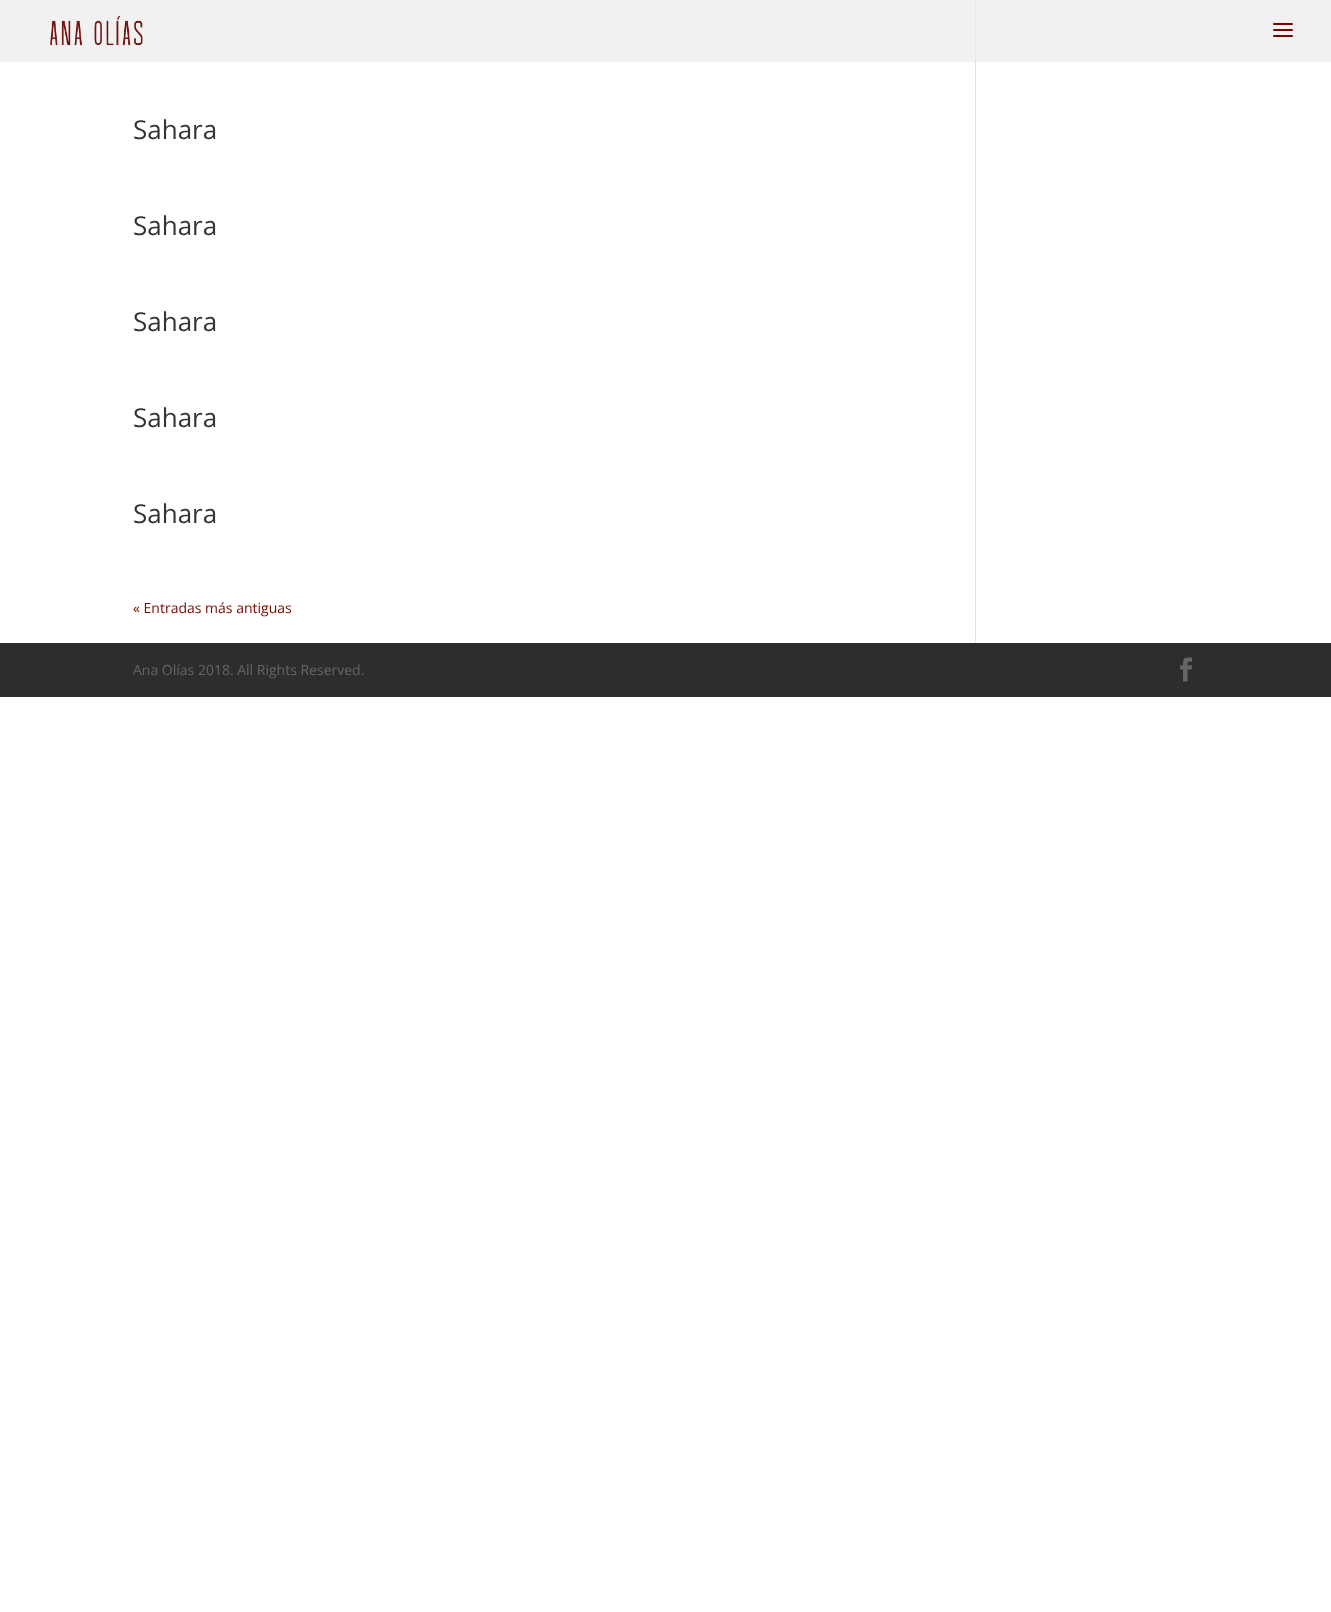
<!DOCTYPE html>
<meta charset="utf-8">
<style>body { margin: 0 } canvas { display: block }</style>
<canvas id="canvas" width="1331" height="1612"></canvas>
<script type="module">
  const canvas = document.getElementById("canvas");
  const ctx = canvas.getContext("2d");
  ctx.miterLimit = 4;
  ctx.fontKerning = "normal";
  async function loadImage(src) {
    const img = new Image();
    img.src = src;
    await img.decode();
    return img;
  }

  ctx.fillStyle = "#ffffff";
  ctx.fillRect(0, 0, 1331, 1612);
  ctx.fillStyle = "#f1f1f1";
  ctx.fillRect(0, 0, 1331, 62);
  ctx.drawImage(await loadImage("img1.png"), 50, 15, 93, 31);
  ctx.drawImage(await loadImage("img2.png"), 1273, 23, 20, 14);
  ctx.font = "26px Open Sans";
  ctx.fillStyle = "#333333";
  ctx.fillText("Sahara", 133, 139);
  ctx.fillText("Sahara", 133, 235);
  ctx.fillText("Sahara", 133, 331);
  ctx.fillText("Sahara", 133, 427);
  ctx.fillText("Sahara", 133, 523);
  ctx.font = "14px Open Sans";
  ctx.fillStyle = "#740900";
  ctx.fillText("« Entradas más antiguas", 133, 613);
  ctx.fillStyle = "#e2e2e2";
  ctx.fillRect(975, 62, 1, 581);
  ctx.fillStyle = "#e7e7e7";
  ctx.fillRect(975, 0, 1, 62);
  ctx.fillStyle = "#2d2d2d";
  ctx.fillRect(0, 643, 1331, 54);
  ctx.fillStyle = "#666666";
  ctx.fillText("Ana Olías 2018. All Rights Reserved.", 133, 675);
  ctx.drawImage(await loadImage("img3.png"), 1180, 657, 12, 25);
</script>
